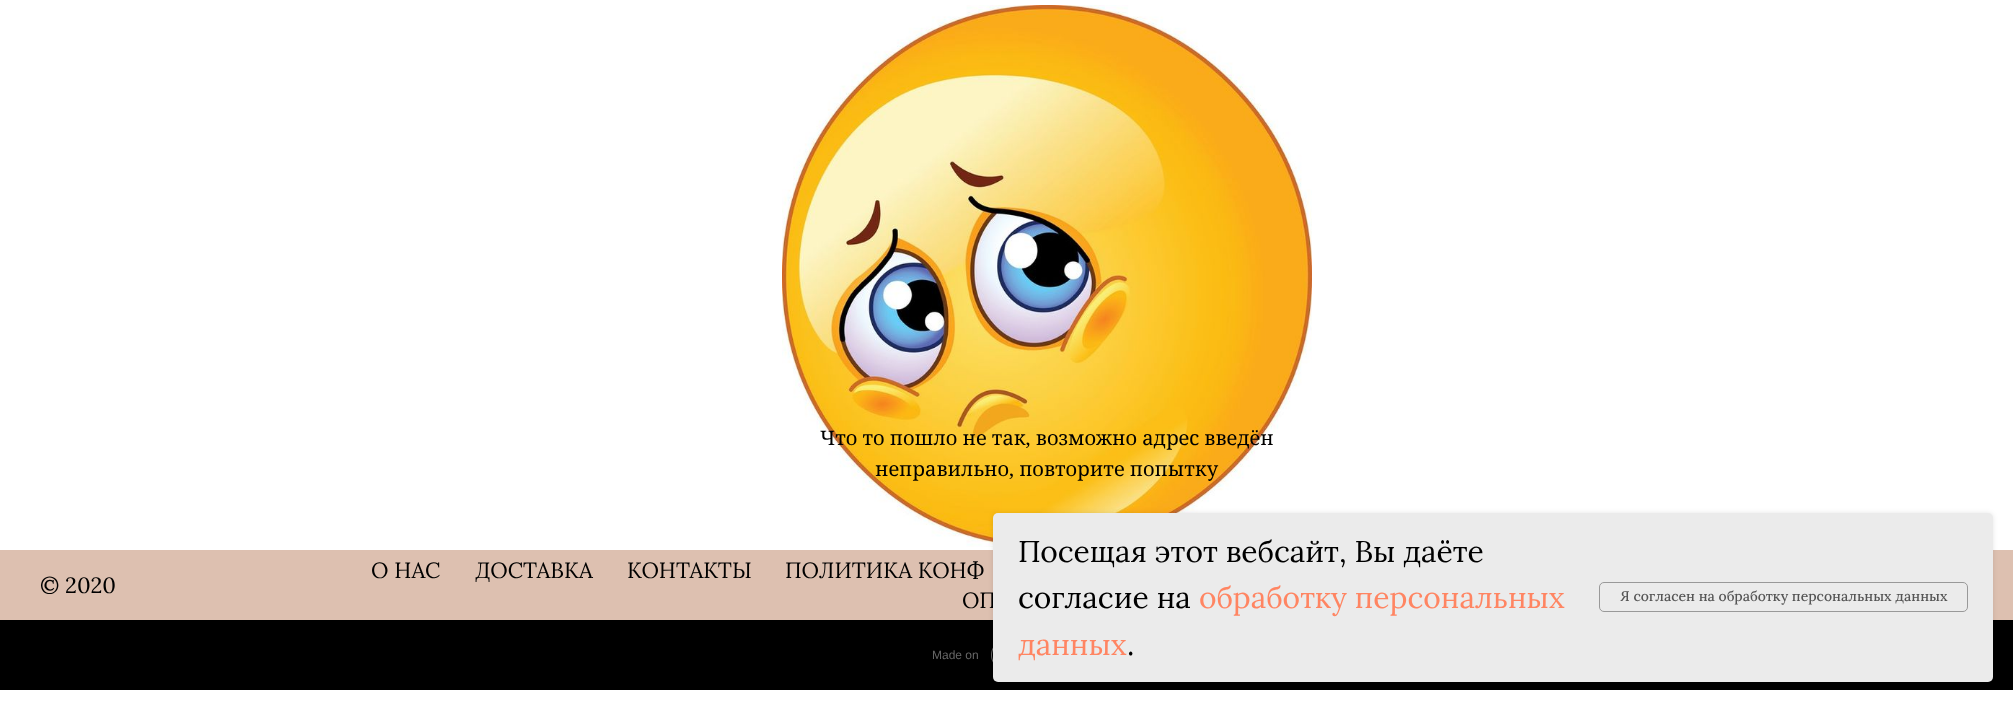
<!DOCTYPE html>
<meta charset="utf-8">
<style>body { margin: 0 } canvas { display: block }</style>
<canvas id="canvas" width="2013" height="712"></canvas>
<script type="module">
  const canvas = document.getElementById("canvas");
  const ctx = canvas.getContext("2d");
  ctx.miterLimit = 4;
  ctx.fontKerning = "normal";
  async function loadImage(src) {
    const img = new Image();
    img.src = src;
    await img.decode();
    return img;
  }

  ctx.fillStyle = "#ffffff";
  ctx.fillRect(0, 0, 2013, 712);
  ctx.drawImage(await loadImage("img1.png"), 782, 5, 530, 542);
  ctx.font = "20px Noto Serif";
  ctx.fillStyle = "#000000";
  ctx.fillText("Что то пошло не так, возможно адрес введён", 820, 445);
  ctx.fillText("неправильно, повторите попытку", 875, 476);
  ctx.fillStyle = "#ddc0b0";
  ctx.fillRect(0, 550, 2013, 70);
  ctx.font = "22px Lora";
  ctx.fillStyle = "#000000";
  ctx.fillText("© 2020", 40, 593);
  ctx.fillText("О НАС", 371, 578);
  ctx.fillText("ДОСТАВКА", 475, 578);
  ctx.fillText("КОНТАКТЫ", 627, 578);
  ctx.fillText("ПОЛИТИКА КОНФ", 785, 578);
  ctx.fillText("ОП", 962, 608);
  ctx.fillRect(0, 620, 2013, 70);
  ctx.drawImage(await loadImage("img2.png"), 991, 640, 2, 30);
  ctx.fillStyle = "rgba(0, 0, 0, 0.1)";
  ctx.filter = "blur(2.5px)";
  ctx.beginPath();
  ctx.roundRect(993, 513, 1000, 169, 5);
  ctx.fill();
  ctx.filter = "none";
  ctx.fillStyle = "#ebebeb";
  ctx.beginPath();
  ctx.roundRect(993, 513, 1000, 169, 5);
  ctx.fill();
  ctx.font = "30px Lora";
  ctx.fillStyle = "#000000";
  ctx.fillText("Посещая этот вебсайт, Вы даёте", 1018, 562);
  ctx.fillText("согласие на", 1018, 608);
  ctx.fillStyle = "#ff8562";
  ctx.fillText("обработку персональных", 1199, 608);
  ctx.fillText("данных", 1018, 655);
  ctx.fillStyle = "#000000";
  ctx.fillText(".", 1127, 655);
  ctx.beginPath();
  ctx.roundRect(1599.5, 582.5, 368, 29, 4.5);
  ctx.strokeStyle = "#999999";
  ctx.stroke();
  ctx.font = "500 14px Lora";
  ctx.fillStyle = "#555555";
  ctx.fillText("Я согласен на обработку персональных данных", 1620, 601);
  ctx.font = "12px Liberation Sans";
  ctx.fillStyle = "#666666";
  ctx.fillText("Made on", 932, 659);
</script>
